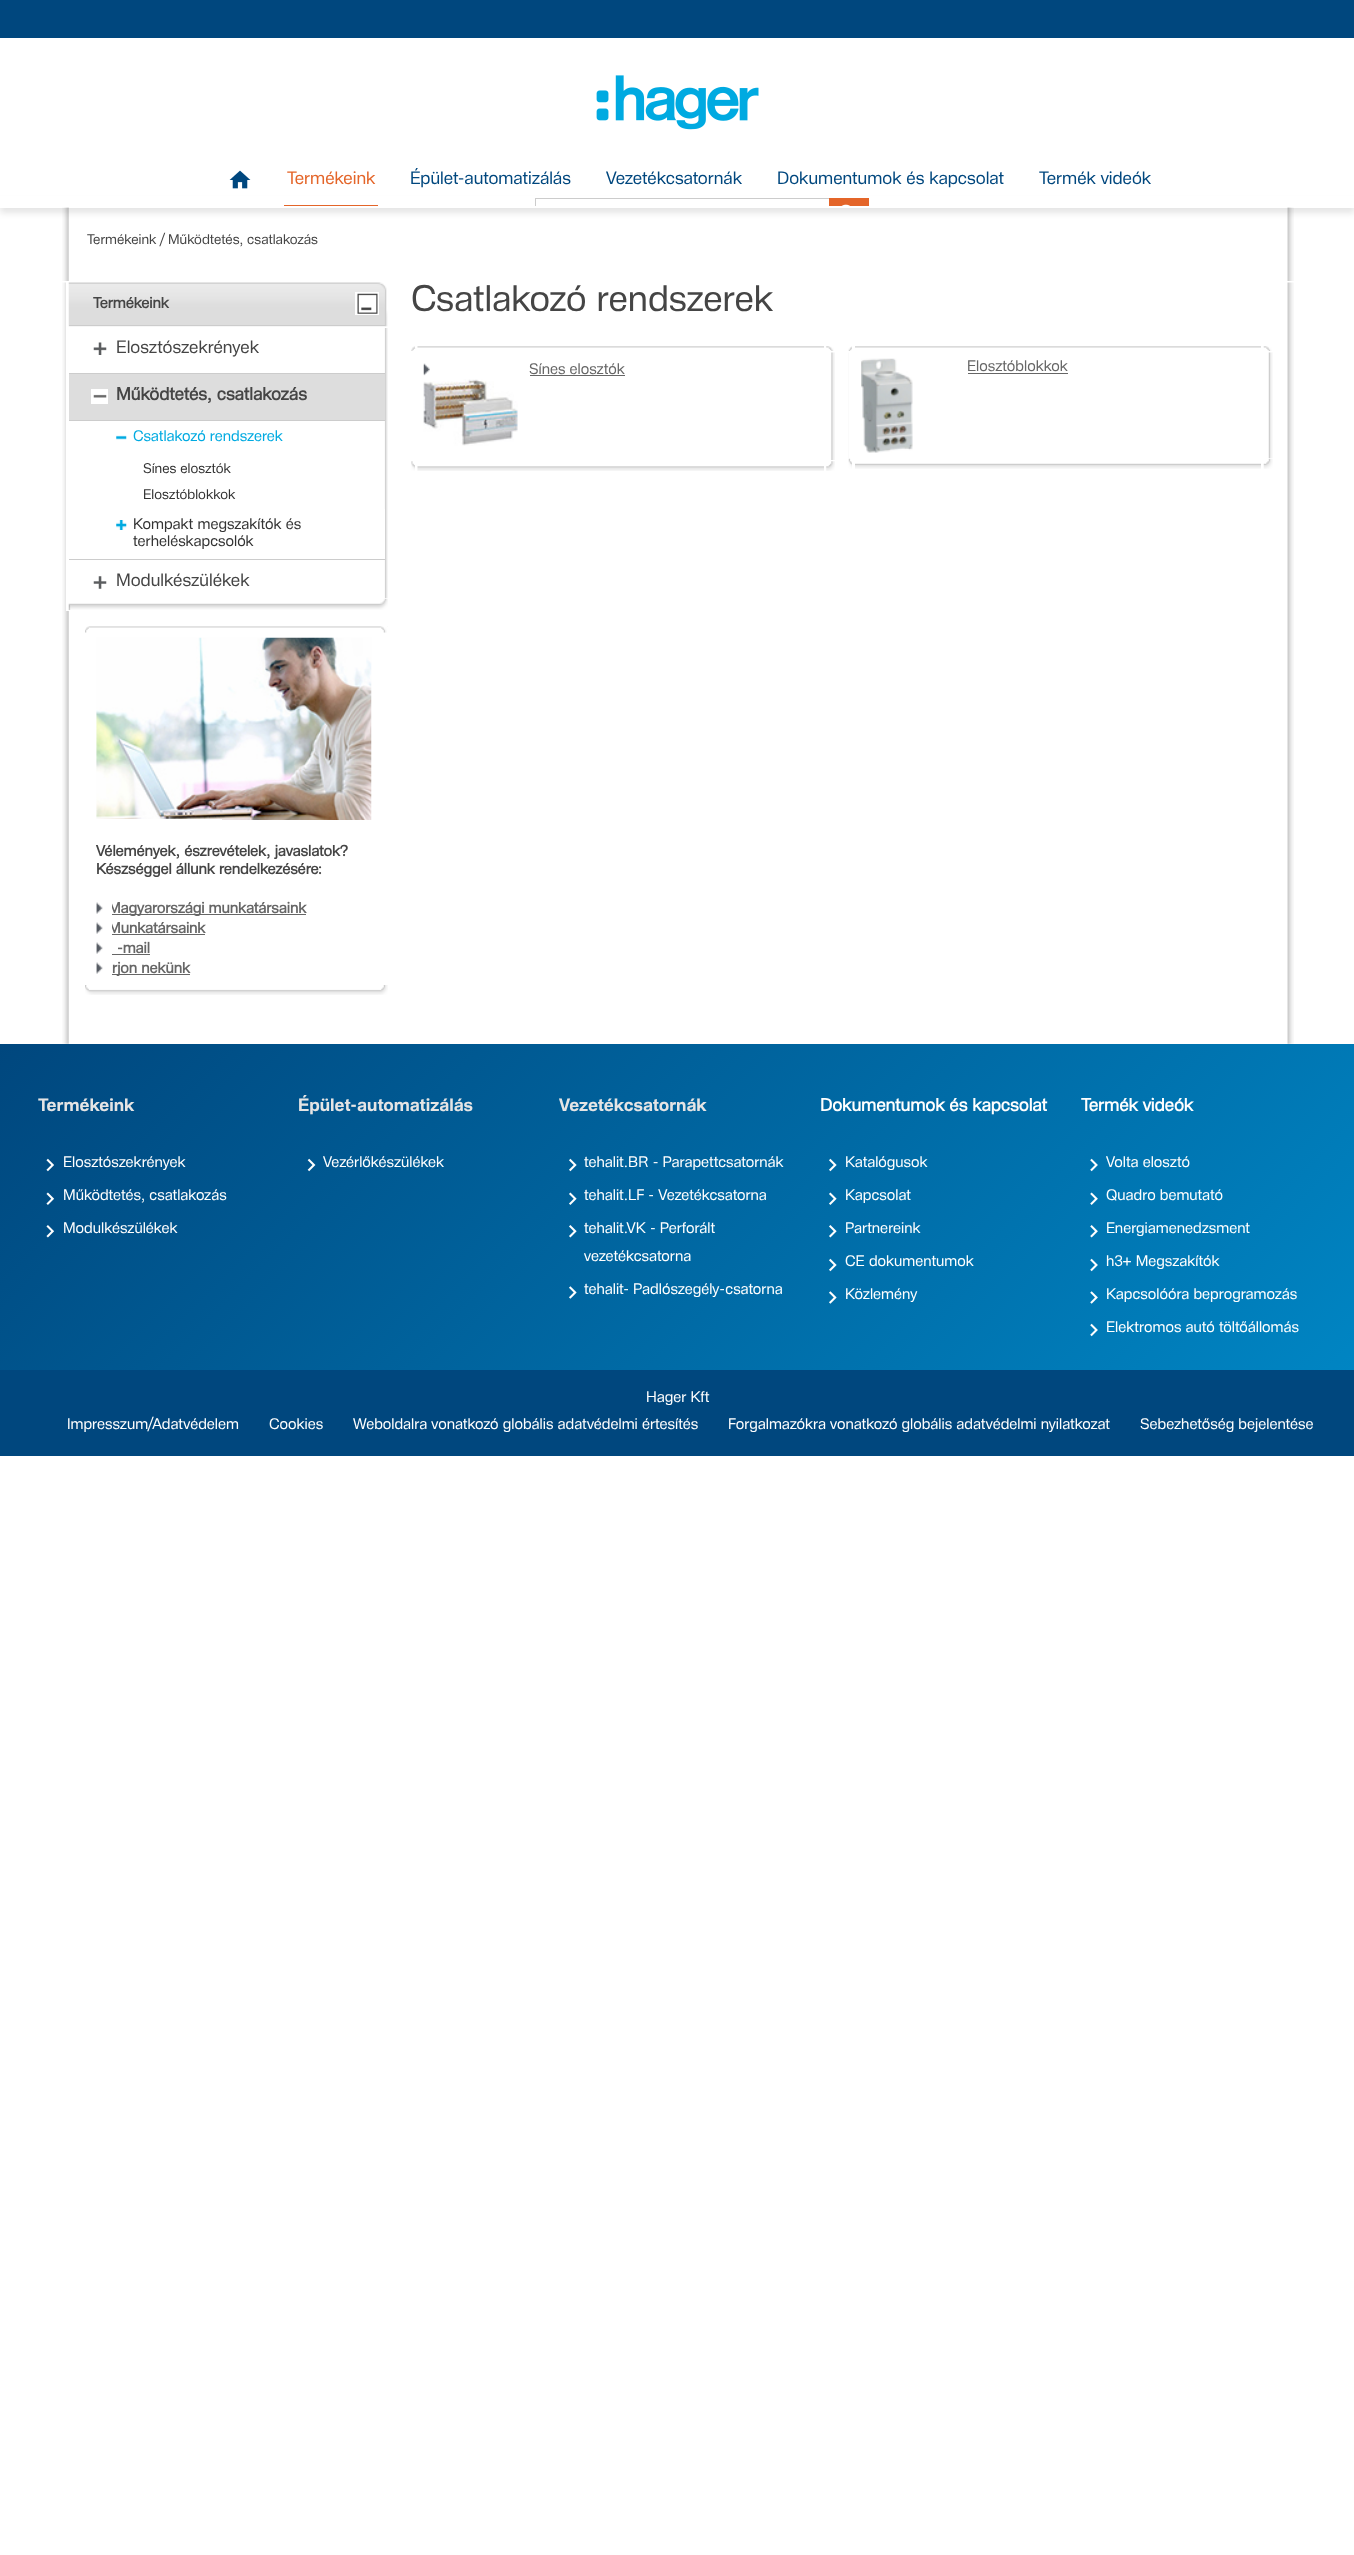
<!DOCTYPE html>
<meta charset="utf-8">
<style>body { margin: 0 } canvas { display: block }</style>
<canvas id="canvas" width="1354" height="2555"></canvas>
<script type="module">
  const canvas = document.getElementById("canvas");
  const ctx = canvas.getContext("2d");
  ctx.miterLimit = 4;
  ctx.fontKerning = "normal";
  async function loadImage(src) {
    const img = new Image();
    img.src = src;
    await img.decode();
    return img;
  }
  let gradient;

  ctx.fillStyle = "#ffffff";
  ctx.fillRect(0, 0, 1354, 2555);
  ctx.fillStyle = "#00477e";
  ctx.fillRect(0, 0, 1354, 38);
  ctx.drawImage(await loadImage("img1.png"), 596, 75, 163, 55);
  ctx.drawImage(await loadImage("img2.png"), 229, 170, 22, 19);
  ctx.fillStyle = "#e46529";
  ctx.fillRect(284, 205, 94, 1);
  ctx.font = "17.5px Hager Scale";
  ctx.fillText("Termékeink", 287, 184);
  ctx.fillStyle = "#00477e";
  ctx.fillText("Épület-automatizálás", 410, 184);
  ctx.fillText("Vezetékcsatornák", 606, 184);
  ctx.fillText("Dokumentumok és kapcsolat", 777, 184);
  ctx.fillText("Termék videók", 1039, 184);
  ctx.strokeStyle = "#cccccc";
  ctx.strokeRect(535.5, 198.5, 333, 35);
  ctx.fillStyle = "#e46529";
  ctx.fillRect(829, 198, 40, 8);
  ctx.drawImage(await loadImage("img3.png"), 841, 204, 9, 2);
  ctx.drawImage(await loadImage("img4.png"), 62, 206, 1232, 75);
  ctx.save();
  ctx.beginPath();
  ctx.moveTo(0, 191);
  ctx.lineTo(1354, 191);
  ctx.lineTo(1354, 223);
  ctx.lineTo(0, 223);
  ctx.closePath();
  ctx.moveTo(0, 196);
  ctx.lineTo(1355, 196);
  ctx.lineTo(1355, 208);
  ctx.lineTo(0, 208);
  ctx.closePath();
  ctx.clip("evenodd");
  ctx.fillStyle = "rgba(0, 0, 0, 0.1)";
  ctx.filter = "blur(3px)";
  ctx.beginPath();
  ctx.rect(0, 201, 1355, 12);
  ctx.fill();
  ctx.filter = "none";
  ctx.restore();
  ctx.font = "13.75px Hager Scale";
  ctx.fillStyle = "#454545";
  ctx.fillText("Termékeink", 87, 244);
  ctx.fillText("/", 160, 244);
  ctx.fillText("Működtetés, csatlakozás", 168, 244);
  ctx.drawImage(await loadImage("img5.png"), 62, 281, 1232, 763);
  ctx.drawImage(await loadImage("img6.png"), 66, 282, 322, 316);
  ctx.drawImage(await loadImage("img7.png"), 68, 282, 320, 46);
  ctx.fillStyle = "#cccccc";
  ctx.fillRect(69, 325, 316, 1);
  ctx.font = "bold 15px Hager Scale";
  ctx.fillStyle = "#454545";
  ctx.fillText("Termékeink", 93, 308);
  ctx.drawImage(await loadImage("img8.png"), 355, 292, 24, 23);
  ctx.drawImage(await loadImage("img9.png"), 93, 342, 14, 13);
  ctx.fillStyle = "#cccccc";
  ctx.fillRect(69, 373, 316, 1);
  ctx.font = "17.5px Hager Scale";
  ctx.fillStyle = "#454545";
  ctx.fillText("Elosztószekrények", 116, 353);
  ctx.fillStyle = "#dddddd";
  ctx.fillRect(69, 374, 316, 46);
  ctx.drawImage(await loadImage("img10.png"), 91, 389, 17, 15);
  ctx.fillStyle = "#cccccc";
  ctx.fillRect(69, 420, 316, 1);
  ctx.font = "bold 17.5px Hager Scale";
  ctx.fillStyle = "#454545";
  ctx.fillText("Működtetés, csatlakozás", 116, 400);
  ctx.fillStyle = "#cccccc";
  ctx.fillRect(69, 559, 316, 1);
  ctx.drawImage(await loadImage("img11.png"), 116, 435, 11, 5);
  ctx.font = "15px Hager Scale";
  ctx.fillStyle = "#00aae1";
  ctx.fillText("Csatlakozó rendszerek", 133, 441);
  ctx.font = "13.75px Hager Scale";
  ctx.fillStyle = "#333333";
  ctx.fillText("Sínes elosztók", 143, 473);
  ctx.fillText("Elosztóblokkok", 143, 499);
  ctx.drawImage(await loadImage("img12.png"), 116, 520, 11, 10);
  ctx.fillStyle = "#ffffff";
  ctx.fillRect(384, 509, 1, 50);
  ctx.font = "15px Hager Scale";
  ctx.fillStyle = "#333333";
  ctx.fillText("Kompakt megszakítók és", 133, 529);
  ctx.fillText("terheléskapcsolók", 133, 546);
  ctx.drawImage(await loadImage("img13.png"), 93, 576, 14, 13);
  ctx.font = "17.5px Hager Scale";
  ctx.fillStyle = "#454545";
  ctx.fillText("Modulkészülékek", 116, 586);
  ctx.drawImage(await loadImage("img14.png"), 66, 598, 322, 13);
  ctx.drawImage(await loadImage("img15.png"), 85, 626, 302, 7);
  ctx.drawImage(await loadImage("img16.png"), 387, 626, 1, 1);
  ctx.drawImage(await loadImage("img17.png"), 96, 637, 276, 183);
  ctx.fillStyle = "#ffffff";
  ctx.fillRect(96, 819, 126, 1);
  ctx.font = "bold 15px Hager Scale";
  ctx.fillStyle = "#454545";
  ctx.fillText("Vélemények, észrevételek, javaslatok?", 96, 856);
  ctx.fillText("Készséggel állunk rendelkezésére:", 96, 874);
  ctx.fillStyle = "#666666";
  ctx.fillRect(109, 914, 197, 1);
  ctx.fillText("Magyarországi munkatársaink", 108, 913);
  ctx.drawImage(await loadImage("img18.png"), 96, 902, 16, 13);
  ctx.fillText("Munkatársaink", 108, 933);
  ctx.fillRect(109, 934, 96, 1);
  ctx.drawImage(await loadImage("img18.png"), 96, 922, 16, 13);
  ctx.fillRect(109, 954, 41, 1);
  ctx.drawImage(await loadImage("img18.png"), 96, 942, 16, 13);
  ctx.fillText("-mail", 117, 953);
  ctx.fillRect(109, 974, 81, 1);
  ctx.drawImage(await loadImage("img19.png"), 96, 960, 16, 15);
  ctx.fillText("rjon nekünk", 112, 973);
  ctx.drawImage(await loadImage("img20.png"), 85, 985, 303, 10);
  ctx.font = "36.25px Hager Scale";
  ctx.fillStyle = "#454545";
  ctx.fillText("Csatlakozó rendszerek", 411, 311);
  ctx.drawImage(await loadImage("img21.png"), 411, 346, 7, 5);
  ctx.drawImage(await loadImage("img22.png"), 415, 346, 409, 2);
  ctx.drawImage(await loadImage("img23.png"), 824, 346, 10, 5);
  ctx.drawImage(await loadImage("img24.png"), 411, 351, 423, 1);
  ctx.drawImage(await loadImage("img25.png"), 411, 352, 424, 110);
  ctx.drawImage(await loadImage("img26.png"), 423, 363, 7, 13);
  ctx.font = "15px Hager Scale";
  ctx.fillStyle = "#666666";
  ctx.fillText("Sínes elosztók", 529, 374);
  ctx.fillRect(530, 375, 95, 1);
  ctx.drawImage(await loadImage("img27.png"), 423, 379, 95, 67);
  ctx.drawImage(await loadImage("img28.png"), 411, 461, 7, 10);
  ctx.drawImage(await loadImage("img29.png"), 415, 465, 409, 6);
  ctx.drawImage(await loadImage("img30.png"), 824, 460, 11, 11);
  ctx.drawImage(await loadImage("img31.png"), 848, 346, 7, 5);
  ctx.drawImage(await loadImage("img32.png"), 852, 346, 409, 3);
  ctx.drawImage(await loadImage("img33.png"), 1261, 346, 11, 5);
  ctx.drawImage(await loadImage("img34.png"), 848, 351, 424, 107);
  ctx.drawImage(await loadImage("img35.png"), 849, 352, 424, 107);
  ctx.drawImage(await loadImage("img36.png"), 861, 358, 52, 95);
  ctx.fillText("Elosztóblokkok", 967, 371);
  ctx.fillRect(968, 373, 100, 1);
  ctx.drawImage(await loadImage("img37.png"), 848, 458, 7, 11);
  ctx.drawImage(await loadImage("img38.png"), 852, 462, 409, 7);
  ctx.drawImage(await loadImage("img39.png"), 1261, 458, 12, 11);
  gradient = ctx.createLinearGradient(257, 787, 1098, 1627);
  gradient.addColorStop(0, "#00477e");
  gradient.addColorStop(1, "#0085c3");
  ctx.fillStyle = gradient;
  ctx.fillRect(0, 1044, 1354, 326);
  ctx.font = "bold 17.5px 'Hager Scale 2'";
  ctx.fillStyle = "#e5e5e5";
  ctx.fillText("Termékeink", 38, 1111);
  ctx.drawImage(await loadImage("img40.png"), 46, 1158, 8, 14);
  ctx.font = "15px Hager Scale";
  ctx.fillStyle = "#ffffff";
  ctx.fillText("Elosztószekrények", 63, 1167);
  ctx.drawImage(await loadImage("img41.png"), 46, 1192, 9, 13);
  ctx.fillText("Működtetés, csatlakozás", 63, 1200);
  ctx.drawImage(await loadImage("img42.png"), 46, 1225, 9, 13);
  ctx.fillText("Modulkészülékek", 63, 1233);
  ctx.font = "bold 17.5px 'Hager Scale 2'";
  ctx.fillStyle = "#e5e5e5";
  ctx.fillText("Épület-automatizálás", 298, 1111);
  ctx.drawImage(await loadImage("img43.png"), 307, 1158, 9, 14);
  ctx.font = "15px Hager Scale";
  ctx.fillStyle = "#ffffff";
  ctx.fillText("Vezérlőkészülékek", 323, 1167);
  ctx.font = "bold 17.5px 'Hager Scale 2'";
  ctx.fillStyle = "#e5e5e5";
  ctx.fillText("Vezetékcsatornák", 559, 1111);
  ctx.drawImage(await loadImage("img44.png"), 569, 1158, 8, 14);
  ctx.font = "15px Hager Scale";
  ctx.fillStyle = "#ffffff";
  ctx.fillText("tehalit.BR - Parapettcsatornák", 584, 1167);
  ctx.drawImage(await loadImage("img45.png"), 569, 1192, 8, 13);
  ctx.fillText("tehalit.LF - Vezetékcsatorna", 584, 1200);
  ctx.drawImage(await loadImage("img46.png"), 569, 1225, 8, 13);
  ctx.fillText("tehalit.VK - Perforált", 584, 1233);
  ctx.fillText("vezetékcsatorna", 584, 1261);
  ctx.drawImage(await loadImage("img47.png"), 569, 1286, 8, 13);
  ctx.fillText("tehalit- Padlószegély-csatorna", 584, 1294);
  ctx.font = "bold 17.5px Hager Scale";
  ctx.fillText("Dokumentumok és kapcsolat", 820, 1111);
  ctx.drawImage(await loadImage("img48.png"), 829, 1158, 8, 14);
  ctx.font = "15px Hager Scale";
  ctx.fillText("Katalógusok", 845, 1167);
  ctx.drawImage(await loadImage("img49.png"), 829, 1192, 8, 13);
  ctx.fillText("Kapcsolat", 845, 1200);
  ctx.drawImage(await loadImage("img50.png"), 829, 1225, 8, 13);
  ctx.fillText("Partnereink", 845, 1233);
  ctx.drawImage(await loadImage("img51.png"), 829, 1258, 8, 14);
  ctx.fillText("CE dokumentumok", 845, 1266);
  ctx.drawImage(await loadImage("img52.png"), 829, 1291, 8, 13);
  ctx.fillText("Közlemény", 845, 1299);
  ctx.font = "bold 17.5px Hager Scale";
  ctx.fillText("Termék videók", 1081, 1111);
  ctx.drawImage(await loadImage("img53.png"), 1090, 1158, 8, 14);
  ctx.font = "15px Hager Scale";
  ctx.fillText("Volta elosztó", 1106, 1167);
  ctx.drawImage(await loadImage("img54.png"), 1090, 1192, 8, 13);
  ctx.fillText("Quadro bemutató", 1106, 1200);
  ctx.drawImage(await loadImage("img55.png"), 1090, 1225, 8, 13);
  ctx.fillText("Energiamenedzsment", 1106, 1233);
  ctx.drawImage(await loadImage("img56.png"), 1090, 1258, 8, 14);
  ctx.fillText("h3+ Megszakítók", 1106, 1266);
  ctx.drawImage(await loadImage("img57.png"), 1090, 1291, 8, 13);
  ctx.fillText("Kapcsolóóra beprogramozás", 1106, 1299);
  ctx.drawImage(await loadImage("img58.png"), 1090, 1323, 8, 14);
  ctx.fillText("Elektromos autó töltőállomás", 1106, 1332);
  ctx.fillStyle = "#00477e";
  ctx.fillRect(0, 1370, 1354, 86);
  ctx.fillStyle = "#ffffff";
  ctx.fillText("Hager Kft", 646, 1402);
  ctx.fillText("Impresszum/Adatvédelem", 67, 1429);
  ctx.fillText("Cookies", 269, 1429);
  ctx.fillText("Weboldalra vonatkozó globális adatvédelmi értesítés", 353, 1429);
  ctx.fillText("Forgalmazókra vonatkozó globális adatvédelmi nyilatkozat", 728, 1429);
  ctx.fillText("Sebezhetőség bejelentése", 1140, 1429);
</script>
